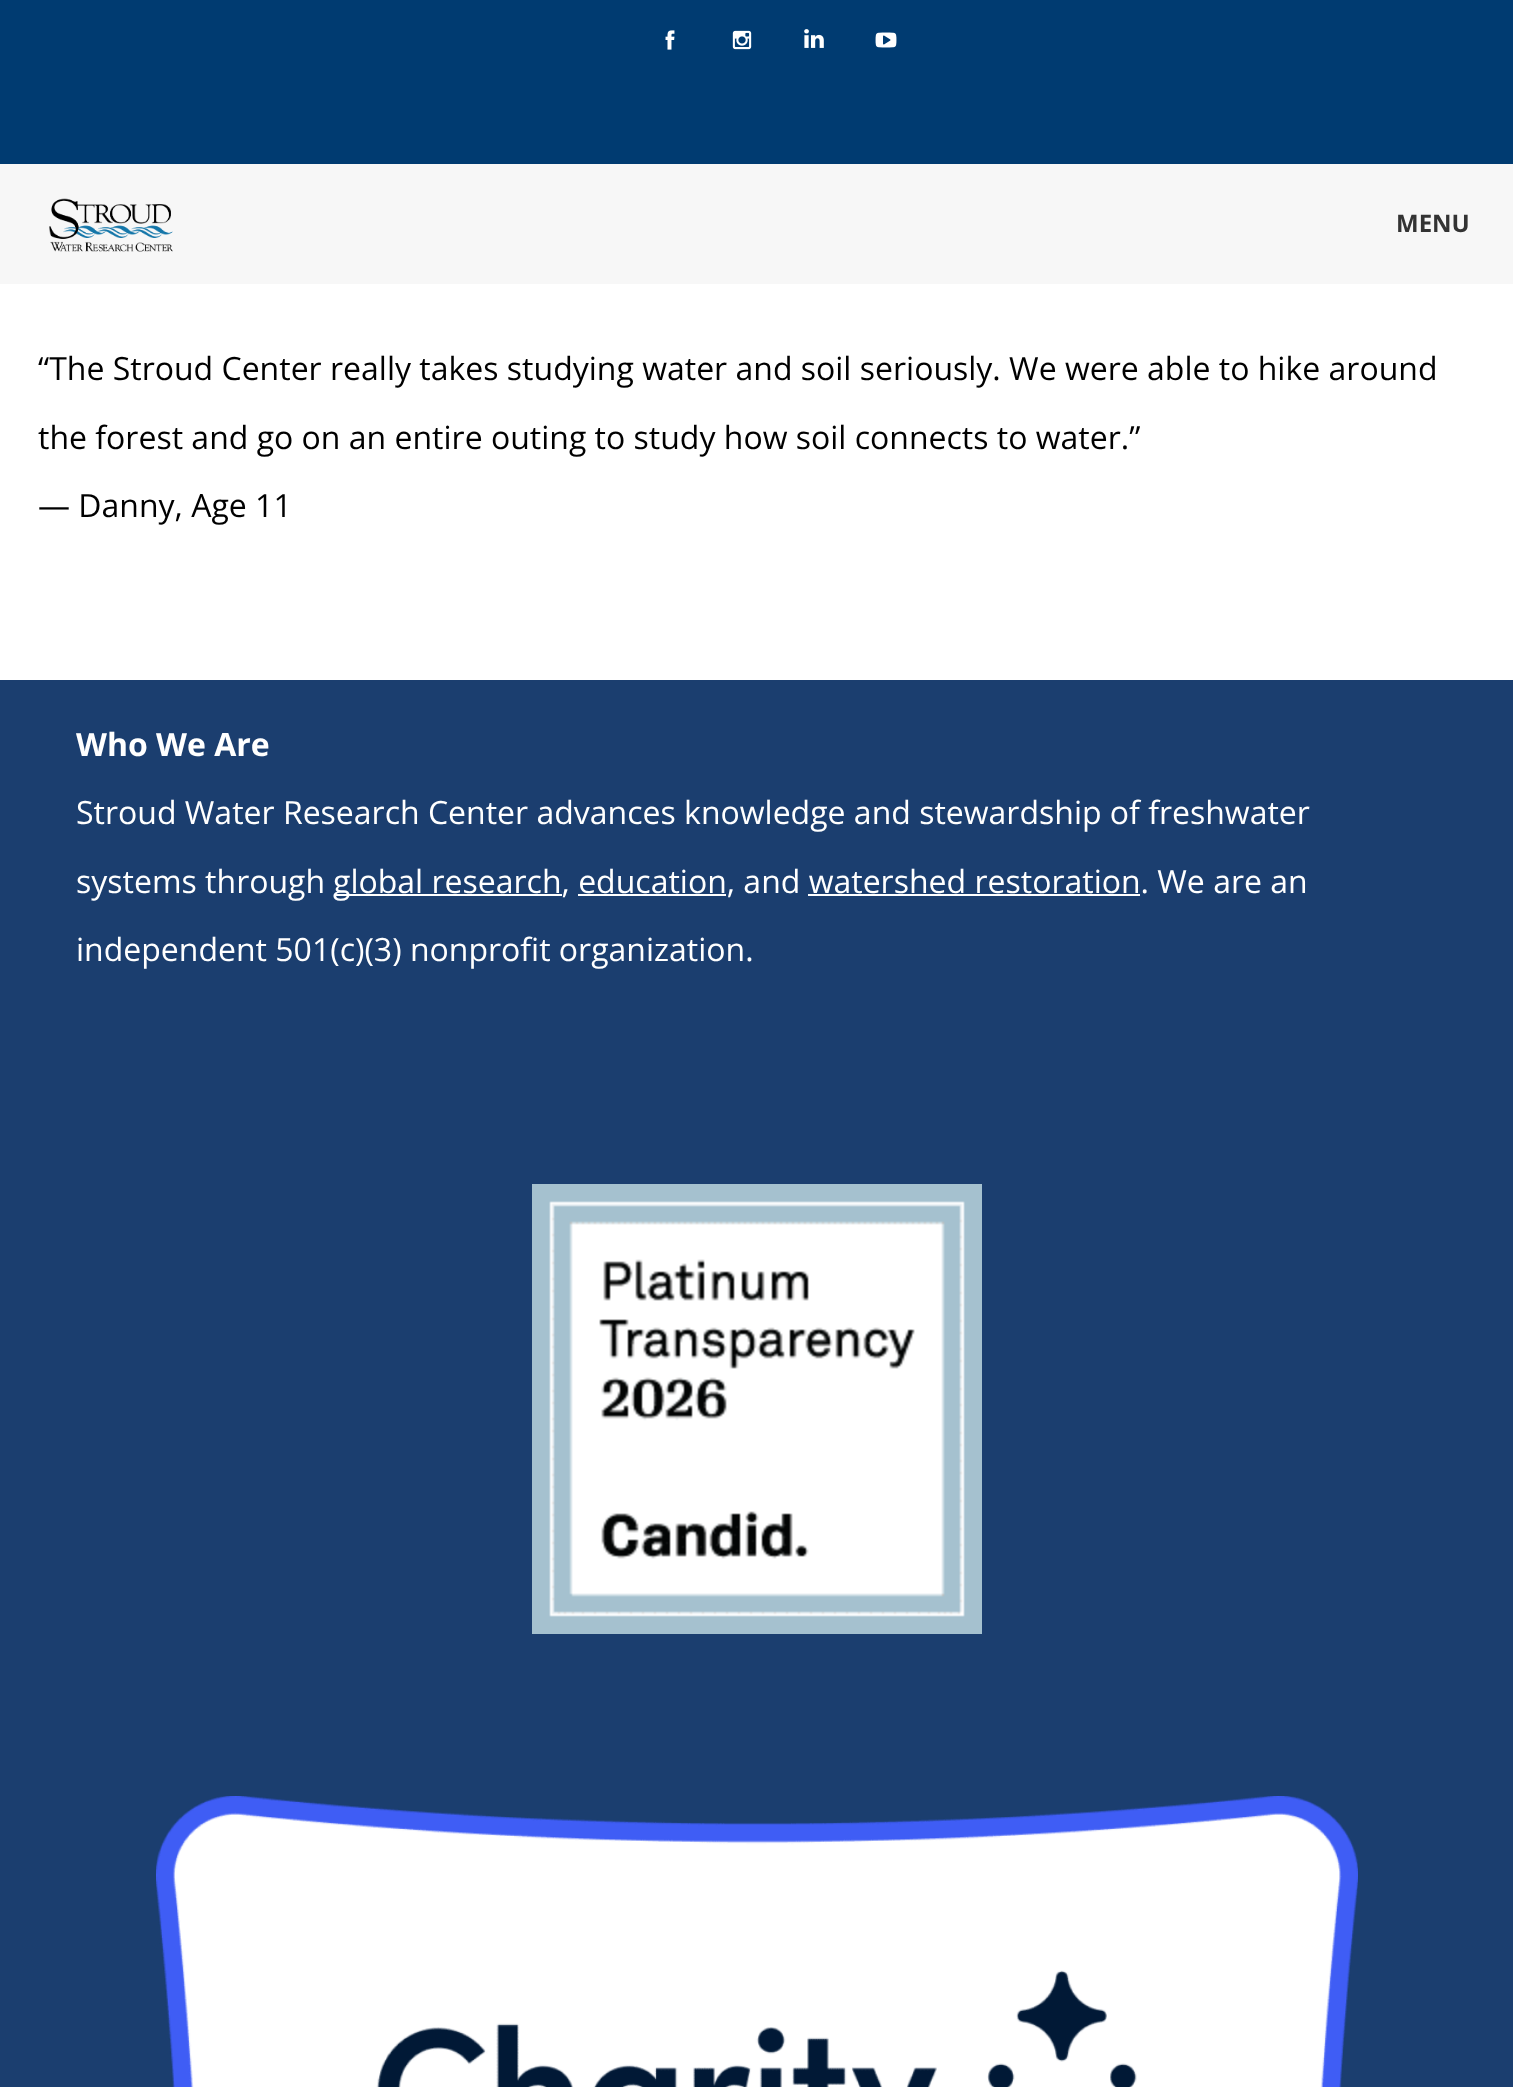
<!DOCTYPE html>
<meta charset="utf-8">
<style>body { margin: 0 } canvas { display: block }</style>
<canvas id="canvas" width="1513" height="2087"></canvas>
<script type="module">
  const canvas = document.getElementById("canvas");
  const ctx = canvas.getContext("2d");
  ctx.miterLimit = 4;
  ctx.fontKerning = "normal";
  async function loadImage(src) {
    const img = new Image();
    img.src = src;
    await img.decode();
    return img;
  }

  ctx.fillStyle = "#ffffff";
  ctx.fillRect(0, 0, 1513, 2087);
  ctx.fillStyle = "#003b71";
  ctx.fillRect(0, 0, 1513, 164);
  ctx.drawImage(await loadImage("img1.png"), 665, 30, 10, 20);
  ctx.drawImage(await loadImage("img2.png"), 732, 30, 20, 20);
  ctx.drawImage(await loadImage("img3.png"), 804, 29, 20, 19);
  ctx.drawImage(await loadImage("img4.png"), 875, 32, 22, 16);
  ctx.fillStyle = "#f7f7f7";
  ctx.fillRect(0, 164, 1513, 120);
  ctx.drawImage(await loadImage("img5.png"), 49, 198, 124, 54);
  ctx.font = "bold 24px Open Sans";
  ctx.fillStyle = "#333333";
  ctx.fillText("MENU", 1396, 232);
  ctx.font = "32px Open Sans";
  ctx.fillStyle = "#000000";
  ctx.fillText("“The Stroud Center really takes studying water and soil seriously. We were able to hike around", 38, 380);
  ctx.fillText("the forest and go on an entire outing to study how soil connects to water.”", 38, 449);
  ctx.fillText("— Danny, Age 11", 38, 517);
  ctx.fillStyle = "#1b3e6f";
  ctx.fillRect(0, 680, 1513, 1407);
  ctx.font = "bold 32px Open Sans";
  ctx.fillStyle = "#ffffff";
  ctx.fillText("Who We Are", 76, 756);
  ctx.font = "32px Open Sans";
  ctx.fillText("Stroud Water Research Center advances knowledge and stewardship of freshwater", 76, 824);
  ctx.fillText("systems through", 76, 893);
  ctx.fillRect(334, 894, 228, 2);
  ctx.fillText("global research, education, and watershed restoration. We are an", 333, 893);
  ctx.fillRect(578, 894, 148, 2);
  ctx.fillRect(808, 894, 332, 2);
  ctx.fillText("independent 501(c)(3) nonprofit organization.", 76, 961);
  ctx.drawImage(await loadImage("img6.png"), 532, 1184, 450, 450);
  ctx.drawImage(await loadImage("img7.png"), 156, 1796, 1202, 291);
</script>
